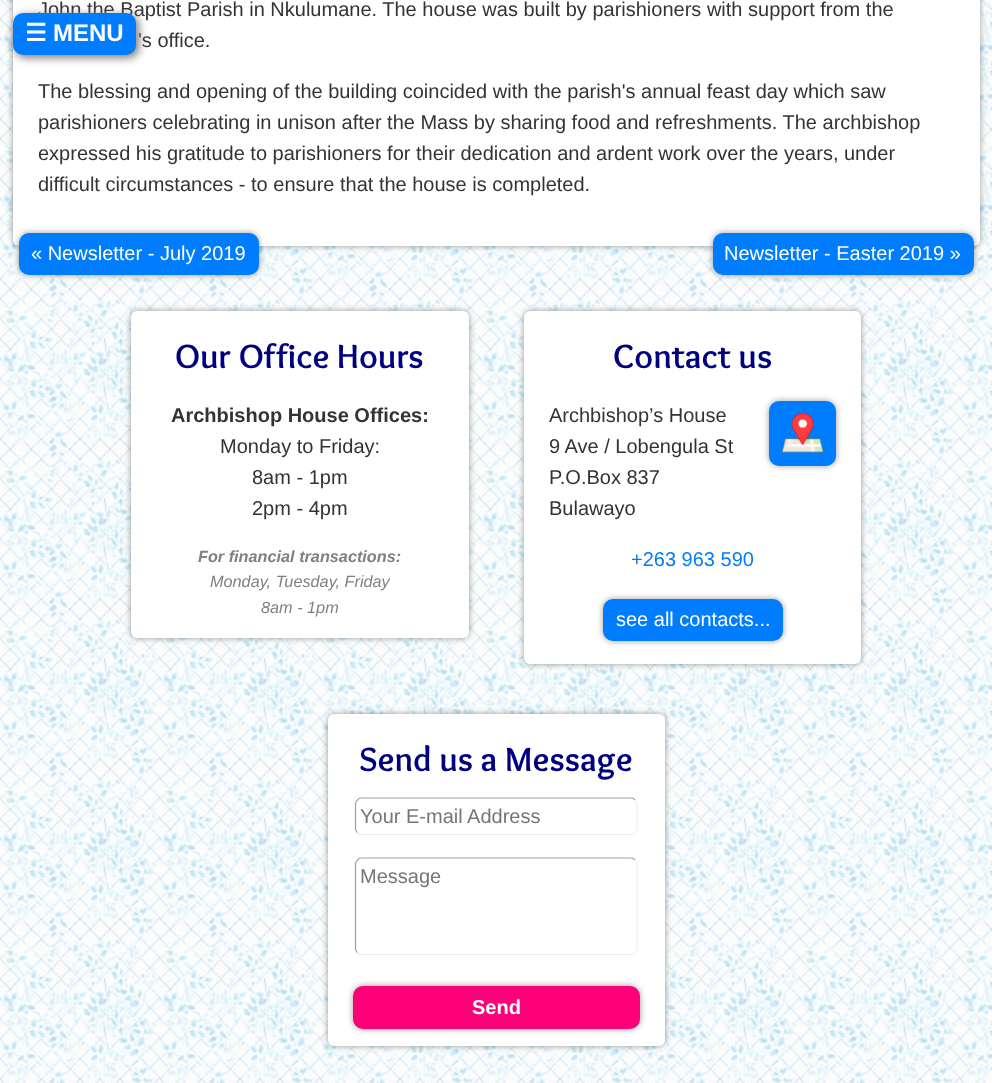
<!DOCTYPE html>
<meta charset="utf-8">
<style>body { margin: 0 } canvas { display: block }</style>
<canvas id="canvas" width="992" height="1083"></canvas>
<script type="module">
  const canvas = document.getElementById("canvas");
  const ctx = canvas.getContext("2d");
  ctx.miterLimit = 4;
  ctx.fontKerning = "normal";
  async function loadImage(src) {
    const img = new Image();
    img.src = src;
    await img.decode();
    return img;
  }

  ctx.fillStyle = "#ffffff";
  ctx.fillRect(0, 0, 992, 1083);
  ctx.drawImage(await loadImage("img1.png"), 0, 0, 992, 1083);
  ctx.fillStyle = "rgba(0, 0, 0, 0.4)";
  ctx.filter = "blur(3px)";
  ctx.beginPath();
  ctx.roundRect(13, -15, 967, 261, 6);
  ctx.fill();
  ctx.filter = "none";
  ctx.fillStyle = "#ffffff";
  ctx.beginPath();
  ctx.roundRect(13, -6, 967, 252, 6);
  ctx.fill();
  ctx.font = "20px Liberation Sans";
  ctx.fillStyle = "#333333";
  ctx.fillText("John the Baptist Parish in Nkulumane. The house was built by parishioners with support from the", 38, 16);
  ctx.fillText("'s office.", 138, 47);
  ctx.fillText("The blessing and opening of the building coincided with the parish's annual feast day which saw", 38, 98);
  ctx.fillText("parishioners celebrating in unison after the Mass by sharing food and refreshments. The archbishop", 38, 129);
  ctx.fillText("expressed his gratitude to parishioners for their dedication and ardent work over the years, under", 38, 160);
  ctx.fillText("difficult circumstances - to ensure that the house is completed.", 38, 191);
  ctx.fillStyle = "rgba(0, 0, 0, 0.4)";
  ctx.filter = "blur(3px)";
  ctx.beginPath();
  ctx.roundRect(19, 233, 240, 42, 10);
  ctx.fill();
  ctx.filter = "none";
  ctx.fillStyle = "#007cff";
  ctx.beginPath();
  ctx.roundRect(19, 233, 240, 42, 10);
  ctx.fill();
  ctx.fillStyle = "#ffffff";
  ctx.fillText("« Newsletter - July 2019", 31, 260);
  ctx.fillStyle = "rgba(0, 0, 0, 0.4)";
  ctx.filter = "blur(3px)";
  ctx.beginPath();
  ctx.roundRect(713, 233, 261, 42, 10);
  ctx.fill();
  ctx.filter = "none";
  ctx.fillStyle = "#007cff";
  ctx.beginPath();
  ctx.roundRect(713, 233, 261, 42, 10);
  ctx.fill();
  ctx.fillStyle = "#ffffff";
  ctx.fillText("Newsletter - Easter 2019 »", 724, 260);
  ctx.fillStyle = "#808080";
  ctx.filter = "blur(4.5px)";
  ctx.beginPath();
  ctx.roundRect(15, 15, 124, 43, 10);
  ctx.fill();
  ctx.filter = "none";
  ctx.fillStyle = "#007cff";
  ctx.beginPath();
  ctx.roundRect(13, 13, 123, 42, 10);
  ctx.fill();
  ctx.font = "bold 24px DejaVu Sans";
  ctx.fillStyle = "#ffffff";
  ctx.fillText("☰", 25, 41);
  ctx.font = "bold 24px Liberation Sans";
  ctx.fillText("MENU", 53, 41);
  ctx.fillStyle = "rgba(0, 0, 0, 0.4)";
  ctx.filter = "blur(3px)";
  ctx.beginPath();
  ctx.roundRect(131, 311, 338, 327, 6);
  ctx.fill();
  ctx.filter = "none";
  ctx.fillStyle = "#ffffff";
  ctx.beginPath();
  ctx.roundRect(131, 311, 338, 327, 6);
  ctx.fill();
  ctx.font = "bold 35px Overlock";
  ctx.fillStyle = "#000080";
  ctx.fillText("Our Office Hours", 175, 368);
  ctx.font = "bold 20px Liberation Sans";
  ctx.fillStyle = "#333333";
  ctx.fillText("Archbishop House Offices:", 171, 422);
  ctx.font = "20px Liberation Sans";
  ctx.fillText("Monday to Friday:", 220, 453);
  ctx.fillText("8am - 1pm", 252, 484);
  ctx.fillText("2pm - 4pm", 252, 515);
  ctx.font = "italic bold 16.25px Liberation Sans";
  ctx.fillStyle = "#808080";
  ctx.fillText("For financial transactions:", 198, 562);
  ctx.font = "italic 16.25px Liberation Sans";
  ctx.fillText("Monday, Tuesday, Friday", 210, 587);
  ctx.fillText("8am - 1pm", 261, 613);
  ctx.fillStyle = "rgba(0, 0, 0, 0.4)";
  ctx.filter = "blur(3px)";
  ctx.beginPath();
  ctx.roundRect(524, 311, 337, 353, 6);
  ctx.fill();
  ctx.filter = "none";
  ctx.fillStyle = "#ffffff";
  ctx.beginPath();
  ctx.roundRect(524, 311, 337, 353, 6);
  ctx.fill();
  ctx.font = "bold 35px Overlock";
  ctx.fillStyle = "#000080";
  ctx.fillText("Contact us", 613, 368);
  ctx.font = "20px Liberation Sans";
  ctx.fillStyle = "#333333";
  ctx.fillText("Archbishop’s House", 549, 422);
  ctx.fillText("9 Ave / Lobengula St", 549, 453);
  ctx.fillText("P.O.Box 837", 549, 484);
  ctx.fillText("Bulawayo", 549, 515);
  ctx.fillStyle = "rgba(0, 0, 0, 0.4)";
  ctx.filter = "blur(3px)";
  ctx.beginPath();
  ctx.roundRect(769, 401, 67, 65, 10);
  ctx.fill();
  ctx.filter = "none";
  ctx.fillStyle = "#007cff";
  ctx.beginPath();
  ctx.roundRect(769, 401, 67, 65, 10);
  ctx.fill();
  ctx.drawImage(await loadImage("img2.png"), 781, 412, 43, 41);
  ctx.fillText("+263 963 590", 631, 566);
  ctx.fillStyle = "rgba(0, 0, 0, 0.4)";
  ctx.filter = "blur(3px)";
  ctx.beginPath();
  ctx.roundRect(603, 599, 180, 42, 10);
  ctx.fill();
  ctx.filter = "none";
  ctx.fillStyle = "#007cff";
  ctx.beginPath();
  ctx.roundRect(603, 599, 180, 42, 10);
  ctx.fill();
  ctx.fillStyle = "#ffffff";
  ctx.fillText("see all contacts...", 616, 626);
  ctx.fillStyle = "rgba(0, 0, 0, 0.4)";
  ctx.filter = "blur(3px)";
  ctx.beginPath();
  ctx.roundRect(328, 714, 337, 332, 6);
  ctx.fill();
  ctx.filter = "none";
  ctx.fillStyle = "#ffffff";
  ctx.beginPath();
  ctx.roundRect(328, 714, 337, 332, 6);
  ctx.fill();
  ctx.font = "bold 35px Overlock";
  ctx.fillStyle = "#000080";
  ctx.fillText("Send us a Message", 359, 771);
  ctx.beginPath();
  ctx.moveTo(635, 800);
  ctx.bezierCurveTo(636.5, 801, 637, 802.5, 637, 804);
  ctx.lineTo(637, 829);
  ctx.bezierCurveTo(637, 830, 636.5, 831.5, 635, 832.5);
  ctx.bezierCurveTo(634, 834, 632.5, 834.5, 631, 834.5);
  ctx.lineTo(361, 834.5);
  ctx.bezierCurveTo(360, 834.5, 358.5, 834, 357.5, 832.5);
  ctx.strokeStyle = "#eeeeee";
  ctx.lineWidth = 1.2;
  ctx.stroke();
  ctx.beginPath();
  ctx.moveTo(357.5, 832.5);
  ctx.bezierCurveTo(356, 831.5, 355.5, 830, 355.5, 829);
  ctx.lineTo(355.5, 804);
  ctx.bezierCurveTo(355.5, 802.5, 356, 801, 357.5, 800);
  ctx.bezierCurveTo(358.5, 798.5, 360, 798, 361, 798);
  ctx.lineTo(631, 798);
  ctx.bezierCurveTo(632.5, 798, 634, 798.5, 635, 800);
  ctx.strokeStyle = "#9f9f9f";
  ctx.stroke();
  ctx.font = "20px Liberation Sans";
  ctx.fillStyle = "#757575";
  ctx.fillText("Your E-mail Address", 360, 823);
  ctx.beginPath();
  ctx.moveTo(635, 860);
  ctx.bezierCurveTo(636.5, 861, 637, 862.5, 637, 864);
  ctx.lineTo(637, 949);
  ctx.bezierCurveTo(637, 950, 636.5, 951.5, 635, 952.5);
  ctx.bezierCurveTo(634, 954, 632.5, 954.5, 631, 954.5);
  ctx.lineTo(361, 954.5);
  ctx.bezierCurveTo(360, 954.5, 358.5, 954, 357.5, 952.5);
  ctx.strokeStyle = "#eeeeee";
  ctx.stroke();
  ctx.beginPath();
  ctx.moveTo(357.5, 952.5);
  ctx.bezierCurveTo(356, 951.5, 355.5, 950, 355.5, 949);
  ctx.lineTo(355.5, 864);
  ctx.bezierCurveTo(355.5, 862.5, 356, 861, 357.5, 860);
  ctx.bezierCurveTo(358.5, 858.5, 360, 858, 361, 858);
  ctx.lineTo(631, 858);
  ctx.bezierCurveTo(632.5, 858, 634, 858.5, 635, 860);
  ctx.strokeStyle = "#9f9f9f";
  ctx.stroke();
  ctx.fillText("Message", 360, 883);
  ctx.fillStyle = "rgba(0, 0, 0, 0.4)";
  ctx.filter = "blur(3px)";
  ctx.beginPath();
  ctx.roundRect(353, 986, 287, 43, 10);
  ctx.fill();
  ctx.filter = "none";
  ctx.fillStyle = "#ff0078";
  ctx.beginPath();
  ctx.roundRect(353, 986, 287, 43, 10);
  ctx.fill();
  ctx.font = "bold 20px Liberation Sans";
  ctx.fillStyle = "#ffffff";
  ctx.fillText("Send", 472, 1014);
</script>
